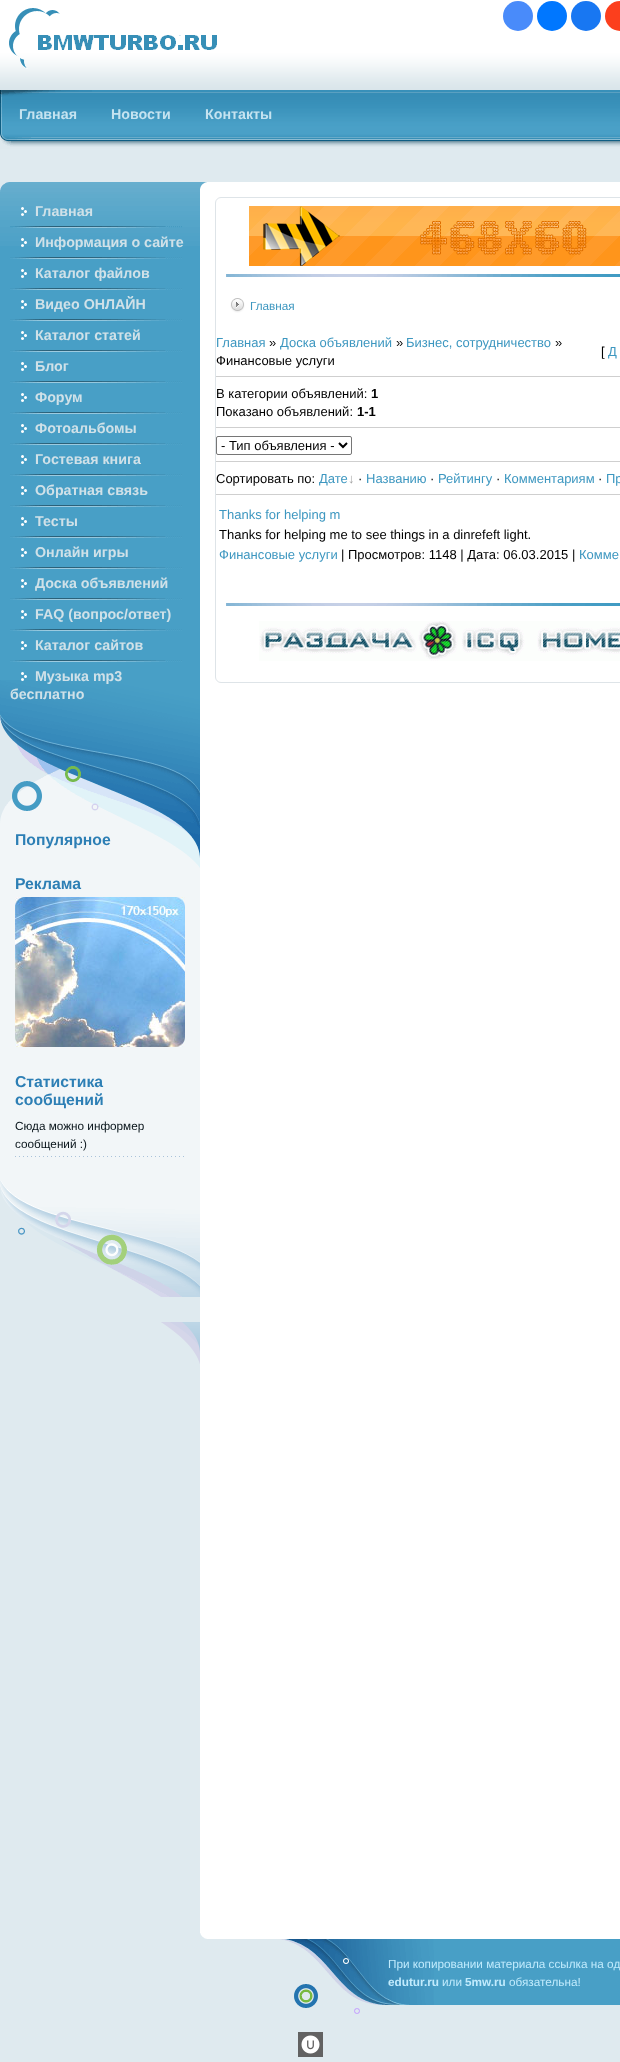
<!DOCTYPE html>
<meta charset="utf-8">
<style>body { margin: 0 } canvas { display: block }</style>
<canvas id="canvas" width="620" height="2062"></canvas>
<script type="module">
  const canvas = document.getElementById("canvas");
  const ctx = canvas.getContext("2d");
  ctx.miterLimit = 4;
  ctx.fontKerning = "normal";
  async function loadImage(src) {
    const img = new Image();
    img.src = src;
    await img.decode();
    return img;
  }

  ctx.fillStyle = "#dfeaef";
  ctx.fillRect(0, 0, 620, 2062);
  ctx.drawImage(await loadImage("img1.png"), 0, 0, 620, 90);
  ctx.drawImage(await loadImage("img2.png"), 9, 8, 208, 61);
  ctx.fillStyle = "#498bfa";
  ctx.beginPath();
  ctx.arc(518, 16, 15, 0, Math.PI * 2);
  ctx.fill();
  ctx.fillStyle = "#0077ff";
  ctx.beginPath();
  ctx.arc(552, 16, 15, 0, Math.PI * 2);
  ctx.fill();
  ctx.fillStyle = "#1877f2";
  ctx.beginPath();
  ctx.arc(586, 16, 15, 0, Math.PI * 2);
  ctx.fill();
  ctx.fillStyle = "#fc3f1d";
  ctx.beginPath();
  ctx.roundRect(605, 1, 15, 30, [15, 0, 0, 15]);
  ctx.fill();
  ctx.fillStyle = "#3890b9";
  ctx.fillRect(92, 90, 528, 2);
  ctx.drawImage(await loadImage("img3.png"), 0, 92, 620, 57);
  ctx.drawImage(await loadImage("img4.png"), 0, 90, 92, 57);
  ctx.font = "bold 14.25px Liberation Sans";
  ctx.fillStyle = "#c5e3f0";
  ctx.fillText("Главная", 19, 119);
  ctx.fillText("Новости", 111, 119);
  ctx.fillText("Контакты", 205, 119);
  ctx.fillStyle = "#ffffff";
  ctx.fillRect(200, 182, 420, 1742);
  ctx.fillStyle = "#489fc6";
  ctx.fillRect(0, 246, 200, 434);
  ctx.drawImage(await loadImage("img5.png"), 0, 182, 200, 64);
  ctx.drawImage(await loadImage("img6.png"), 0, 680, 200, 131);
  ctx.drawImage(await loadImage("img7.png"), 21, 207, 6, 9);
  ctx.fillStyle = "#d0e1e8";
  ctx.fillText("Главная", 35, 216);
  ctx.drawImage(await loadImage("img8.png"), 10, 226, 172, 2);
  ctx.drawImage(await loadImage("img9.png"), 21, 238, 6, 9);
  ctx.fillText("Информация о сайте", 35, 247);
  ctx.drawImage(await loadImage("img10.png"), 10, 257, 172, 2);
  ctx.drawImage(await loadImage("img11.png"), 21, 269, 6, 9);
  ctx.fillText("Каталог файлов", 35, 278);
  ctx.drawImage(await loadImage("img10.png"), 10, 288, 172, 2);
  ctx.drawImage(await loadImage("img11.png"), 21, 300, 6, 9);
  ctx.fillText("Видео ОНЛАЙН", 35, 309);
  ctx.drawImage(await loadImage("img10.png"), 10, 319, 172, 2);
  ctx.drawImage(await loadImage("img11.png"), 21, 331, 6, 9);
  ctx.fillText("Каталог статей", 35, 340);
  ctx.drawImage(await loadImage("img10.png"), 10, 350, 172, 2);
  ctx.drawImage(await loadImage("img11.png"), 21, 362, 6, 9);
  ctx.fillText("Блог", 35, 371);
  ctx.drawImage(await loadImage("img10.png"), 10, 381, 172, 2);
  ctx.drawImage(await loadImage("img11.png"), 21, 393, 6, 9);
  ctx.fillText("Форум", 35, 402);
  ctx.drawImage(await loadImage("img10.png"), 10, 412, 172, 2);
  ctx.drawImage(await loadImage("img11.png"), 21, 424, 6, 9);
  ctx.fillText("Фотоальбомы", 35, 433);
  ctx.drawImage(await loadImage("img10.png"), 10, 443, 172, 2);
  ctx.drawImage(await loadImage("img11.png"), 21, 455, 6, 9);
  ctx.fillText("Гостевая книга", 35, 464);
  ctx.drawImage(await loadImage("img10.png"), 10, 474, 172, 2);
  ctx.drawImage(await loadImage("img11.png"), 21, 486, 6, 9);
  ctx.fillText("Обратная связь", 35, 495);
  ctx.drawImage(await loadImage("img10.png"), 10, 505, 172, 2);
  ctx.drawImage(await loadImage("img11.png"), 21, 517, 6, 9);
  ctx.fillText("Тесты", 35, 526);
  ctx.drawImage(await loadImage("img10.png"), 10, 536, 172, 2);
  ctx.drawImage(await loadImage("img11.png"), 21, 548, 6, 9);
  ctx.fillText("Онлайн игры", 35, 557);
  ctx.drawImage(await loadImage("img10.png"), 10, 567, 172, 2);
  ctx.drawImage(await loadImage("img11.png"), 21, 579, 6, 9);
  ctx.fillText("Доска объявлений", 35, 588);
  ctx.drawImage(await loadImage("img10.png"), 10, 598, 172, 2);
  ctx.drawImage(await loadImage("img11.png"), 21, 610, 6, 9);
  ctx.fillText("FAQ (вопрос/ответ)", 35, 619);
  ctx.drawImage(await loadImage("img10.png"), 10, 629, 172, 2);
  ctx.drawImage(await loadImage("img11.png"), 21, 641, 6, 9);
  ctx.fillText("Каталог сайтов", 35, 650);
  ctx.drawImage(await loadImage("img10.png"), 10, 660, 172, 2);
  ctx.drawImage(await loadImage("img12.png"), 21, 672, 6, 9);
  ctx.fillText("Музыка mp3", 35, 681);
  ctx.fillText("бесплатно", 10, 699);
  ctx.fillStyle = "#f2f6f8";
  ctx.fillRect(0, 868, 200, 313);
  ctx.drawImage(await loadImage("img13.png"), 0, 811, 200, 57);
  ctx.drawImage(await loadImage("img14.png"), 0, 1181, 200, 116);
  ctx.font = "bold 15.75px Liberation Sans";
  ctx.fillStyle = "#2d7fb5";
  ctx.fillText("Популярное", 15, 845);
  ctx.fillText("Реклама", 15, 889);
  ctx.drawImage(await loadImage("img15.png"), 15, 897, 170, 150);
  ctx.fillText("Статистика", 15, 1087);
  ctx.fillText("сообщений", 15, 1105);
  ctx.drawImage(await loadImage("img16.png"), 15, 1156, 169, 1);
  ctx.font = "11.75px Liberation Sans";
  ctx.fillStyle = "#071319";
  ctx.fillText("Сюда можно информер", 15, 1130);
  ctx.fillText("сообщений :)", 15, 1148);
  ctx.drawImage(await loadImage("img17.png"), 161, 1322, 39, 42);
  ctx.drawImage(await loadImage("img18.png"), 200, 182, 7, 7);
  ctx.beginPath();
  ctx.roundRect(215.5, 197.5, 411, 485, 5.5);
  ctx.strokeStyle = "#dee4e8";
  ctx.stroke();
  ctx.drawImage(await loadImage("img19.png"), 226, 274, 394, 3);
  ctx.drawImage(await loadImage("img20.png"), 249, 206, 371, 60);
  ctx.drawImage(await loadImage("img21.png"), 230, 298, 15, 15);
  ctx.fillStyle = "#3d97c0";
  ctx.fillText("Главная", 250, 310);
  ctx.font = "13px Liberation Sans";
  ctx.fillText("Главная", 216, 347);
  ctx.fillStyle = "#000000";
  ctx.fillText("»", 269, 347);
  ctx.fillStyle = "#3d97c0";
  ctx.fillText("Доска объявлений", 280, 347);
  ctx.fillStyle = "#000000";
  ctx.fillText("»", 396, 347);
  ctx.fillStyle = "#3d97c0";
  ctx.fillText("Бизнес, сотрудничество", 406, 347);
  ctx.fillStyle = "#000000";
  ctx.fillText("»", 555, 347);
  ctx.fillText("Финансовые услуги", 216, 365);
  ctx.fillText("[", 601, 356);
  ctx.fillStyle = "#3d97c0";
  ctx.fillText("Д", 608, 356);
  ctx.fillStyle = "#cfcfcf";
  ctx.fillRect(216, 376, 404, 1);
  ctx.fillStyle = "#000000";
  ctx.fillText("В категории объявлений:", 216, 398);
  ctx.font = "bold 13px Liberation Sans";
  ctx.fillText("1", 371, 398);
  ctx.font = "13px Liberation Sans";
  ctx.fillText("Показано объявлений:", 216, 416);
  ctx.font = "bold 13px Liberation Sans";
  ctx.fillText("1-1", 357, 416);
  ctx.fillStyle = "#cfcfcf";
  ctx.fillRect(216, 427, 404, 1);
  ctx.beginPath();
  ctx.roundRect(216.5, 436.5, 135, 18, 1.5);
  ctx.strokeStyle = "#767676";
  ctx.stroke();
  ctx.beginPath();
  ctx.moveTo(339, 443);
  ctx.lineTo(343, 447);
  ctx.lineTo(347, 443);
  ctx.strokeStyle = "#000000";
  ctx.lineWidth = 2;
  ctx.stroke();
  ctx.font = "13px Liberation Sans";
  ctx.fillStyle = "#000000";
  ctx.fillText("- Тип объявления -", 221, 450);
  ctx.fillStyle = "#cfcfcf";
  ctx.fillRect(216, 461, 404, 1);
  ctx.fillStyle = "#000000";
  ctx.fillText("Сортировать по:", 216, 483);
  ctx.fillStyle = "#3d97c0";
  ctx.fillText("Дате", 319, 483);
  ctx.fillStyle = "#a0a0a0";
  ctx.fillText("↓", 348, 483);
  ctx.fillStyle = "#000000";
  ctx.fillText("·", 358, 483);
  ctx.fillStyle = "#3d97c0";
  ctx.fillText("Названию", 366, 483);
  ctx.fillStyle = "#000000";
  ctx.fillText("·", 430, 483);
  ctx.fillStyle = "#3d97c0";
  ctx.fillText("Рейтингу", 438, 483);
  ctx.fillStyle = "#000000";
  ctx.fillText("·", 496, 483);
  ctx.fillStyle = "#3d97c0";
  ctx.fillText("Комментариям", 504, 483);
  ctx.fillStyle = "#000000";
  ctx.fillText("·", 598, 483);
  ctx.fillStyle = "#3d97c0";
  ctx.fillText("Пр", 606, 483);
  ctx.fillStyle = "#cfcfcf";
  ctx.fillRect(216, 494, 404, 1);
  ctx.fillStyle = "#3d97c0";
  ctx.fillText("Thanks for helping m", 219, 519);
  ctx.fillStyle = "#000000";
  ctx.fillText("Thanks for helping me to see things in a dinrefeft light.", 219, 539);
  ctx.fillStyle = "#3d97c0";
  ctx.fillText("Финансовые услуги", 219, 559);
  ctx.fillStyle = "#000000";
  ctx.fillText("| Просмотров: 1148 | Дата: 06.03.2015 |", 341, 559);
  ctx.fillStyle = "#3d97c0";
  ctx.fillText("Комме", 579, 559);
  ctx.drawImage(await loadImage("img19.png"), 226, 603, 394, 3);
  ctx.drawImage(await loadImage("img22.png"), 259, 621, 361, 40);
  ctx.drawImage(await loadImage("img23.png"), 200, 1924, 420, 90);
  ctx.drawImage(await loadImage("img24.png"), 200, 1933, 234, 81);
  ctx.font = "11.75px Liberation Sans";
  ctx.fillStyle = "#c1ebfd";
  ctx.fillText("При копировании материала ссылка на од", 388, 1968);
  ctx.font = "bold 11.75px Liberation Sans";
  ctx.fillText("edutur.ru", 388, 1986);
  ctx.font = "11.75px Liberation Sans";
  ctx.fillText("или", 442, 1986);
  ctx.font = "bold 11.75px Liberation Sans";
  ctx.fillText("5mw.ru", 465, 1986);
  ctx.font = "11.75px Liberation Sans";
  ctx.fillText("обязательна!", 509, 1986);
  ctx.drawImage(await loadImage("img25.png"), 298, 2032, 25, 25);
</script>
